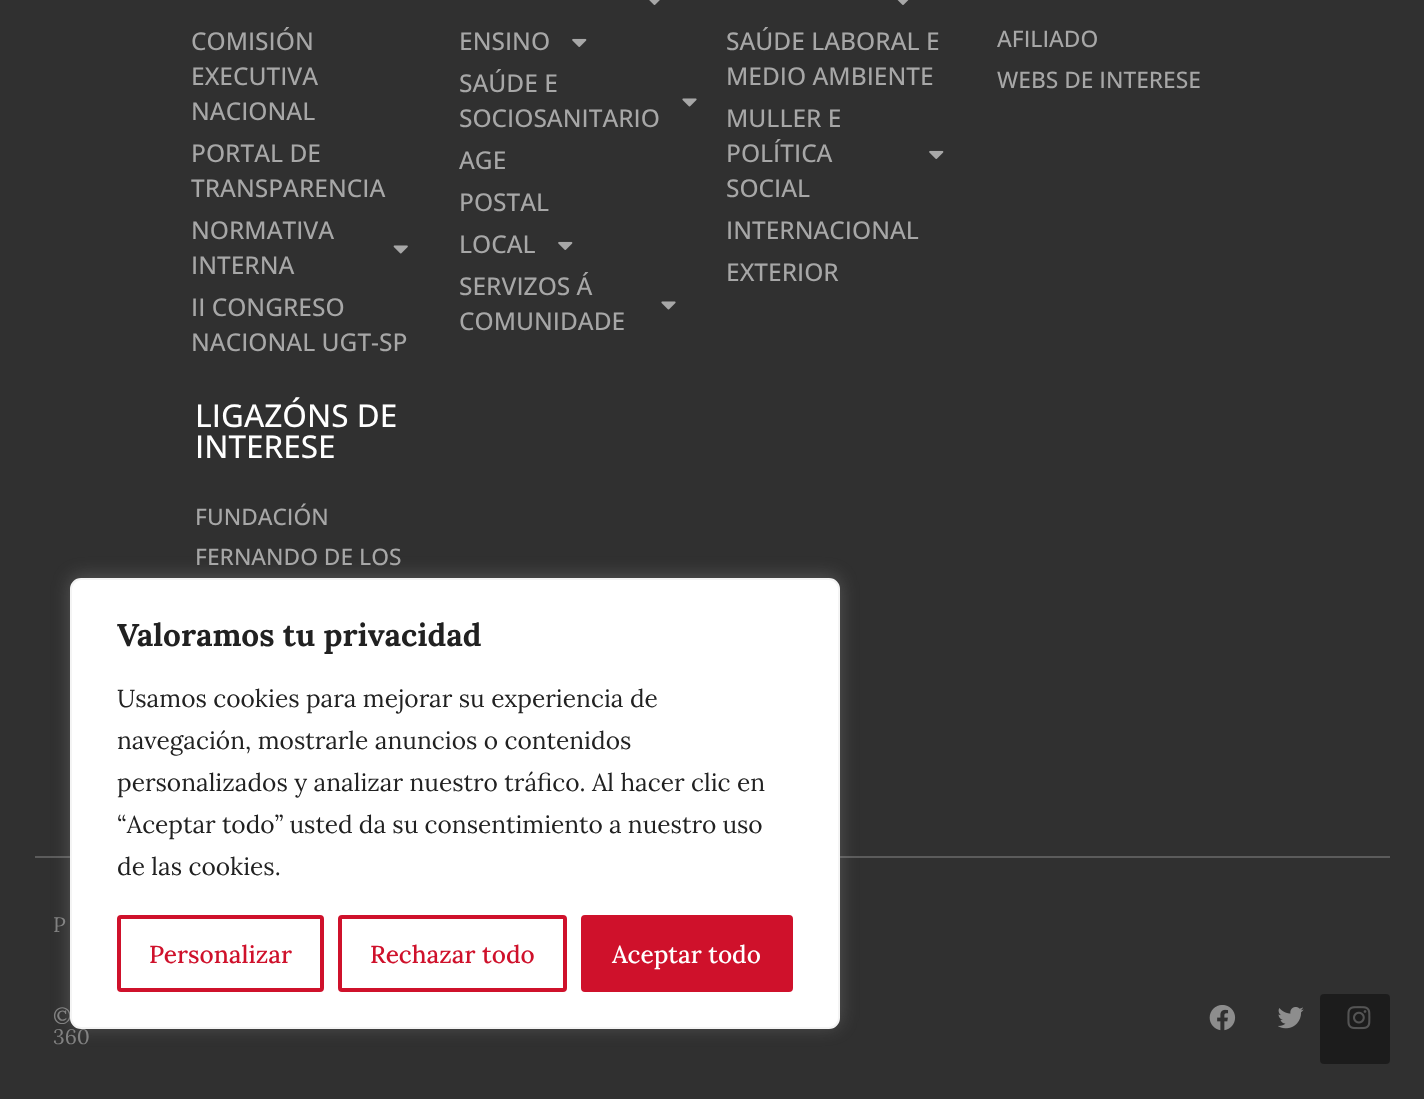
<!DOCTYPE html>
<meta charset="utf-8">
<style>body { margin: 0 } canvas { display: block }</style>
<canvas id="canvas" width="1424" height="1099"></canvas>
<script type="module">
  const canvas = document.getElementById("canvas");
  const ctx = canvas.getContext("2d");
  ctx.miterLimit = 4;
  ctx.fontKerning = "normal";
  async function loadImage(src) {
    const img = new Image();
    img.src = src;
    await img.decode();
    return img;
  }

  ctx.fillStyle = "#303030";
  ctx.fillRect(0, 0, 1424, 1099);
  ctx.font = "500 24.5px Open Sans";
  ctx.fillStyle = "#a7a7a7";
  ctx.fillText("COMISIÓN", 191, 50);
  ctx.fillText("EXECUTIVA", 191, 85);
  ctx.fillText("NACIONAL", 191, 120);
  ctx.fillText("PORTAL DE", 191, 162);
  ctx.fillText("TRANSPARENCIA", 191, 197);
  ctx.fillText("NORMATIVA", 191, 239);
  ctx.drawImage(await loadImage("img1.png"), 393, 245, 15, 9);
  ctx.fillText("INTERNA", 191, 274);
  ctx.fillText("II CONGRESO", 191, 316);
  ctx.fillText("NACIONAL UGT-SP", 191, 351);
  ctx.drawImage(await loadImage("img2.png"), 649, 0, 11, 5);
  ctx.fillText("ENSINO", 459, 50);
  ctx.drawImage(await loadImage("img3.png"), 572, 38, 15, 9);
  ctx.fillText("SAÚDE E", 459, 92);
  ctx.drawImage(await loadImage("img4.png"), 682, 98, 15, 9);
  ctx.fillText("SOCIOSANITARIO", 459, 127);
  ctx.fillText("AGE", 459, 169);
  ctx.fillText("POSTAL", 459, 211);
  ctx.fillText("LOCAL", 459, 253);
  ctx.drawImage(await loadImage("img3.png"), 558, 241, 15, 9);
  ctx.fillText("SERVIZOS Á", 459, 295);
  ctx.drawImage(await loadImage("img4.png"), 661, 301, 15, 9);
  ctx.fillText("COMUNIDADE", 459, 330);
  ctx.drawImage(await loadImage("img5.png"), 897, 0, 12, 5);
  ctx.fillText("SAÚDE LABORAL E", 726, 50);
  ctx.fillText("MEDIO AMBIENTE", 726, 85);
  ctx.fillText("MULLER E", 726, 127);
  ctx.fillText("POLÍTICA", 726, 162);
  ctx.drawImage(await loadImage("img3.png"), 929, 150, 15, 9);
  ctx.fillText("SOCIAL", 726, 197);
  ctx.fillText("INTERNACIONAL", 726, 239);
  ctx.fillText("EXTERIOR", 726, 281);
  ctx.font = "500 22.75px Open Sans";
  ctx.fillText("AFILIADO", 997, 47);
  ctx.fillText("WEBS DE INTERESE", 997, 88);
  ctx.font = "500 31.5px Open Sans";
  ctx.fillStyle = "#ffffff";
  ctx.fillText("LIGAZÓNS DE", 195, 427);
  ctx.fillText("INTERESE", 195, 458);
  ctx.font = "500 22.75px Open Sans";
  ctx.fillStyle = "#a7a7a7";
  ctx.fillText("FUNDACIÓN", 195, 525);
  ctx.fillText("FERNANDO DE LOS", 195, 565);
  ctx.fillStyle = "#5b5b5b";
  ctx.fillRect(35, 856, 1355, 2);
  ctx.font = "21px Lora";
  ctx.fillStyle = "#818181";
  ctx.fillText("P", 53, 932);
  ctx.fillText("©", 53, 1023);
  ctx.fillText("360", 53, 1044);
  ctx.drawImage(await loadImage("img6.png"), 1209, 1005, 27, 26);
  ctx.drawImage(await loadImage("img7.png"), 1278, 1007, 26, 22);
  ctx.drawImage(await loadImage("img8.png"), 1347, 1006, 24, 24);
  ctx.fillStyle = "rgba(172, 171, 171, 0.3)";
  ctx.filter = "blur(9px)";
  ctx.beginPath();
  ctx.roundRect(70, 576, 770, 451, 11);
  ctx.fill();
  ctx.filter = "none";
  ctx.fillStyle = "#ffffff";
  ctx.beginPath();
  ctx.roundRect(71, 579, 768, 449, 10);
  ctx.fill();
  ctx.strokeStyle = "#f4f4f4";
  ctx.lineWidth = 2;
  ctx.stroke();
  ctx.font = "bold 31.5px Lora";
  ctx.fillStyle = "#212121";
  ctx.fillText("Valoramos tu privacidad", 117, 646);
  ctx.font = "24.5px Lora";
  ctx.fillText("Usamos cookies para mejorar su experiencia de", 117, 707);
  ctx.fillText("navegación, mostrarle anuncios o contenidos", 117, 749);
  ctx.fillText("personalizados y analizar nuestro tráfico. Al hacer clic en", 117, 791);
  ctx.wordSpacing = "-0.25px";
  ctx.fillText("“Aceptar todo” usted da su consentimiento a nuestro uso", 117, 833);
  ctx.wordSpacing = "0px";
  ctx.fillText("de las cookies.", 117, 875);
  ctx.beginPath();
  ctx.roundRect(119, 917, 203, 73, 2);
  ctx.strokeStyle = "#cf112b";
  ctx.lineWidth = 4;
  ctx.stroke();
  ctx.font = "500 24.5px Lora";
  ctx.fillStyle = "#cf112b";
  ctx.fillText("Personalizar", 149, 963);
  ctx.beginPath();
  ctx.roundRect(340, 917, 225, 73, 2);
  ctx.stroke();
  ctx.fillText("Rechazar todo", 370, 963);
  ctx.beginPath();
  ctx.roundRect(583, 917, 208, 73, 2);
  ctx.fill();
  ctx.stroke();
  ctx.fillStyle = "#ffffff";
  ctx.fillText("Aceptar todo", 612, 963);
  ctx.fillStyle = "rgba(0, 0, 0, 0.4)";
  ctx.beginPath();
  ctx.roundRect(1320, 994, 70, 70, 4);
  ctx.fill();
</script>
